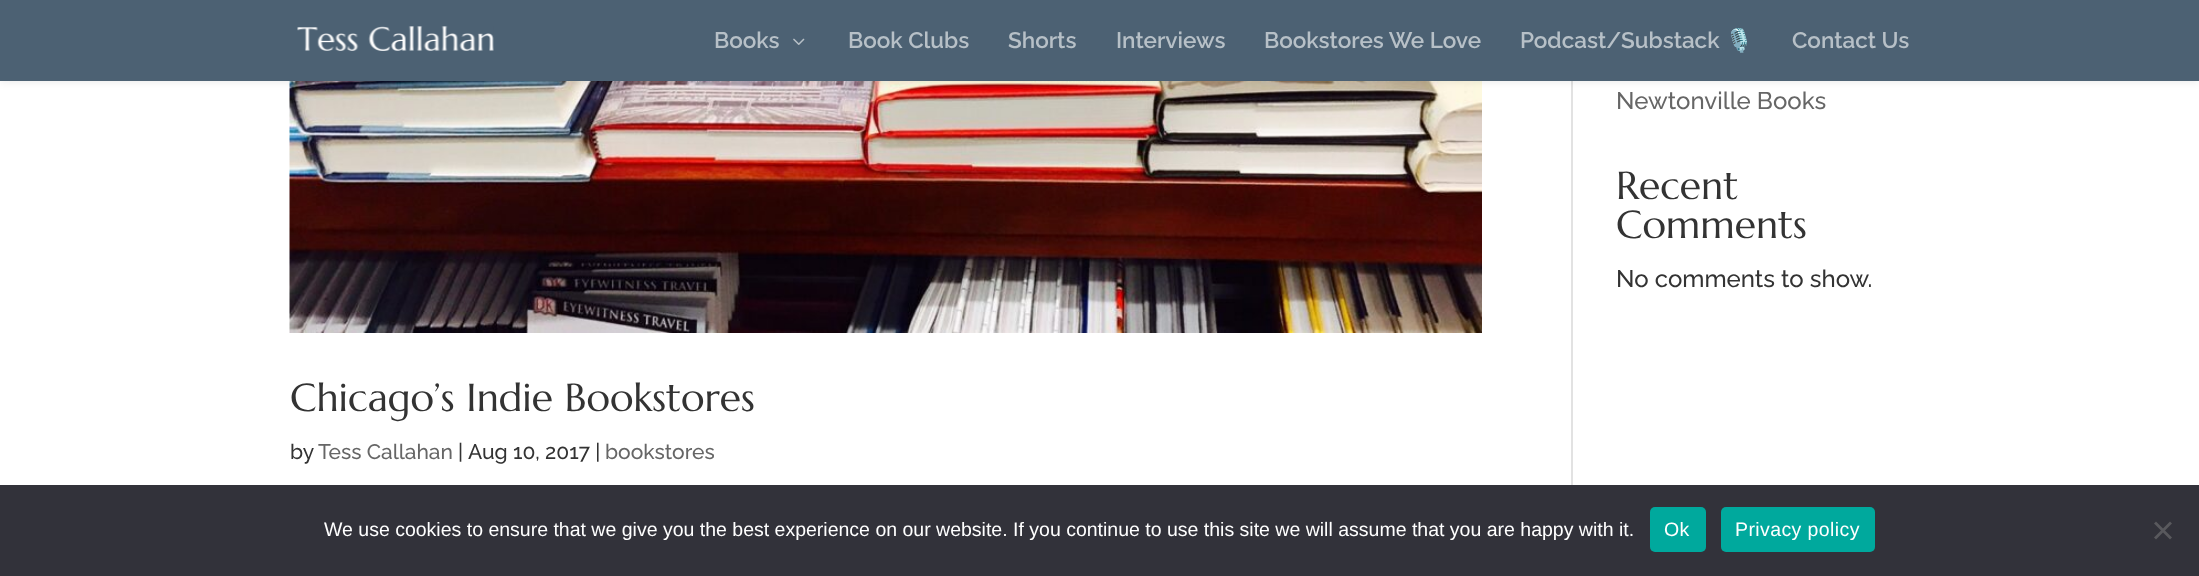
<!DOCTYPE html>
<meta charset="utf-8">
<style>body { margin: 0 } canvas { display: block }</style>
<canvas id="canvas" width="2199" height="576"></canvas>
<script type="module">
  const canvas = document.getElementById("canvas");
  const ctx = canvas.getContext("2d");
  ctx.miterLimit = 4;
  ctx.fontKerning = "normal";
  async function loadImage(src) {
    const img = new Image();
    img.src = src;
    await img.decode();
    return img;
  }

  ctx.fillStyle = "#ffffff";
  ctx.fillRect(0, 0, 2199, 576);
  ctx.fillStyle = "#e2e2e2";
  ctx.fillRect(1571, 81, 2, 404);
  ctx.drawImage(await loadImage("img3.png"), 289, 81, 1193, 252);
  ctx.fillStyle = "rgba(0, 0, 0, 0.1)";
  ctx.filter = "blur(5px)";
  ctx.beginPath();
  ctx.rect(0, 0, 2199, 81);
  ctx.fill();
  ctx.filter = "none";
  ctx.fillStyle = "#4c6173";
  ctx.fillRect(0, 0, 2199, 81);
  ctx.drawImage(await loadImage("img1.png"), 297, 26, 197, 25);
  ctx.font = "600 22.5px Raleway";
  ctx.fillStyle = "#b7c0c7";
  ctx.fillText("Books", 714, 48);
  ctx.drawImage(await loadImage("img2.png"), 793, 38, 12, 7);
  ctx.fillText("Book Clubs", 848, 48);
  ctx.fillText("Shorts", 1008, 48);
  ctx.fillText("Interviews", 1116, 48);
  ctx.fillText("Bookstores We Love", 1264, 48);
  ctx.fillText("Podcast/Substack", 1520, 48);
  ctx.font = "bold 22.5px Noto Color Emoji";
  ctx.fillText("🎙️", 1725, 48);
  ctx.font = "600 22.5px Raleway";
  ctx.fillText("Contact Us", 1792, 48);
  ctx.font = "500 24px Raleway";
  ctx.fillStyle = "#666666";
  ctx.fillText("Newtonville Books", 1616, 109);
  ctx.font = "39px Marcellus";
  ctx.fillStyle = "#333333";
  ctx.fillText("Recent", 1616, 199);
  ctx.fillText("Comments", 1616, 238);
  ctx.font = "500 24px Raleway";
  ctx.fillText("No comments to show.", 1616, 287);
  ctx.font = "39px Marcellus";
  ctx.fillText("Chicago’s Indie Bookstores", 290, 411);
  ctx.font = "500 21px Raleway";
  ctx.fillText("by", 290, 459);
  ctx.fillStyle = "#666666";
  ctx.fillText("Tess Callahan", 318, 459);
  ctx.fillStyle = "#333333";
  ctx.fillText("|", 458, 459);
  ctx.fillText("Aug 10, 2017 |", 468, 459);
  ctx.fillStyle = "#666666";
  ctx.fillText("bookstores", 605, 459);
  ctx.fillStyle = "#32323a";
  ctx.fillRect(0, 485, 2199, 91);
  ctx.font = "19.5px Liberation Sans";
  ctx.fillStyle = "#ffffff";
  ctx.fillText("We use cookies to ensure that we give you the best experience on our website. If you continue to use this site we will assume that you are happy with it.", 324, 536);
  ctx.fillStyle = "#00a99d";
  ctx.beginPath();
  ctx.roundRect(1650, 507, 56, 45, 5);
  ctx.fill();
  ctx.letterSpacing = "0.4px";
  ctx.fillStyle = "#ffffff";
  ctx.fillText("Ok", 1664, 536);
  ctx.fillStyle = "#00a99d";
  ctx.beginPath();
  ctx.roundRect(1721, 507, 154, 45, 5);
  ctx.fill();
  ctx.fillStyle = "#ffffff";
  ctx.fillText("Privacy policy", 1735, 536);
  ctx.fillStyle = "#59595d";
  ctx.beginPath();
  ctx.moveTo(2170, 521.5);
  ctx.lineTo(2172, 523.5);
  ctx.lineTo(2156, 539.5);
  ctx.lineTo(2154, 537.5);
  ctx.closePath();
  ctx.fill();
  ctx.beginPath();
  ctx.moveTo(2154, 523.5);
  ctx.lineTo(2156, 521.5);
  ctx.lineTo(2172, 537.5);
  ctx.lineTo(2170, 539.5);
  ctx.closePath();
  ctx.fill();
</script>
